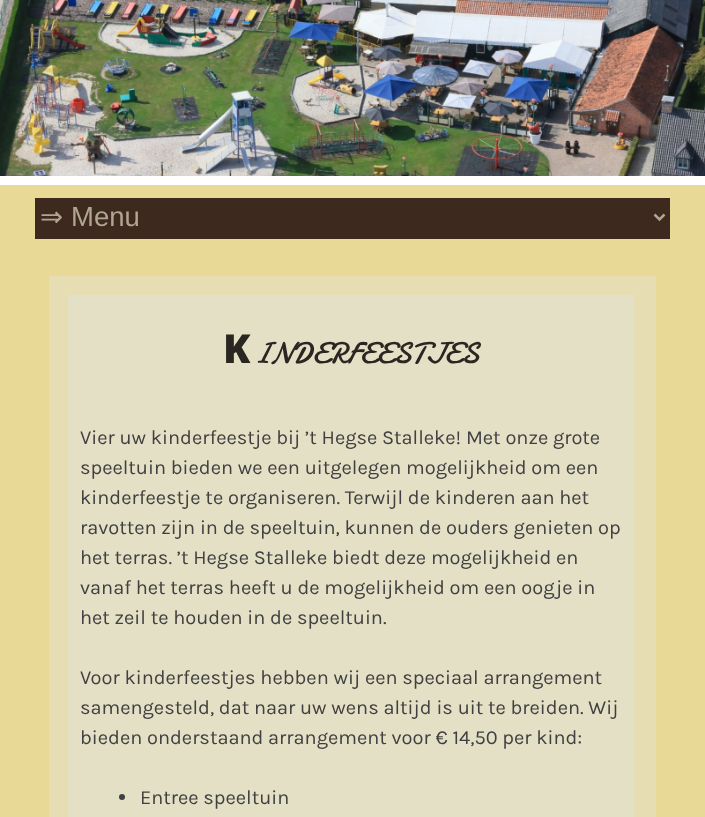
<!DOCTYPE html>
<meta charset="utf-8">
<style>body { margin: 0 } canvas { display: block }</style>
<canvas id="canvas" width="705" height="817"></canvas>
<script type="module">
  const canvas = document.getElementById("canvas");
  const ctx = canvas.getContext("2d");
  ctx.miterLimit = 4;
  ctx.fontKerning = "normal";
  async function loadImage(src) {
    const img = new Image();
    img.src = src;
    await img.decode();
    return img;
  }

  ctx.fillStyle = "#e9d996";
  ctx.fillRect(0, 0, 705, 817);
  ctx.fillStyle = "#ffffff";
  ctx.fillRect(0, 176, 705, 9);
  ctx.drawImage(await loadImage("img1.png"), 0, 0, 705, 176);
  ctx.fillStyle = "#3d291e";
  ctx.fillRect(35, 198, 635, 41);
  ctx.beginPath();
  ctx.moveTo(654.5, 214.5);
  ctx.lineTo(659.5, 219.5);
  ctx.lineTo(664.5, 214.5);
  ctx.strokeStyle = "#b0a591";
  ctx.lineWidth = 2.5;
  ctx.stroke();
  ctx.font = "27.5px DejaVu Sans";
  ctx.fillStyle = "#b0a591";
  ctx.fillText("⇒", 40, 226);
  ctx.font = "27.5px Liberation Sans";
  ctx.fillText("Menu", 71, 226);
  ctx.fillStyle = "#e7ddb2";
  ctx.fillRect(49, 276, 607, 541);
  ctx.fillStyle = "#e4e0c6";
  ctx.fillRect(68, 295, 566, 522);
  ctx.font = "900 40px Noto Sans";
  ctx.fillStyle = "#2a2622";
  ctx.fillText("K", 223, 363);
  ctx.font = "30px Damion";
  ctx.fillText("INDERFEESTJES", 254, 363);
  ctx.font = "20px Karla";
  ctx.fillStyle = "#404040";
  ctx.fillText("Vier uw kinderfeestje bij ’t Hegse Stalleke! Met onze grote", 80, 444);
  ctx.fillText("speeltuin bieden we een uitgelegen mogelijkheid om een", 80, 474);
  ctx.fillText("kinderfeestje te organiseren. Terwijl de kinderen aan het", 80, 504);
  ctx.fillText("ravotten zijn in de speeltuin, kunnen de ouders genieten op", 80, 534);
  ctx.fillText("het terras. ’t Hegse Stalleke biedt deze mogelijkheid en", 80, 564);
  ctx.fillText("vanaf het terras heeft u de mogelijkheid om een oogje in", 80, 594);
  ctx.fillText("het zeil te houden in de speeltuin.", 80, 624);
  ctx.fillText("Voor kinderfeestjes hebben wij een speciaal arrangement", 80, 684);
  ctx.fillText("samengesteld, dat naar uw wens altijd is uit te breiden. Wij", 80, 714);
  ctx.fillText("bieden onderstaand arrangement voor € 14,50 per kind:", 80, 744);
  ctx.beginPath();
  ctx.arc(122, 797, 3, 0, Math.PI * 2);
  ctx.fill();
  ctx.fillText("Entree speeltuin", 140, 804);
</script>
